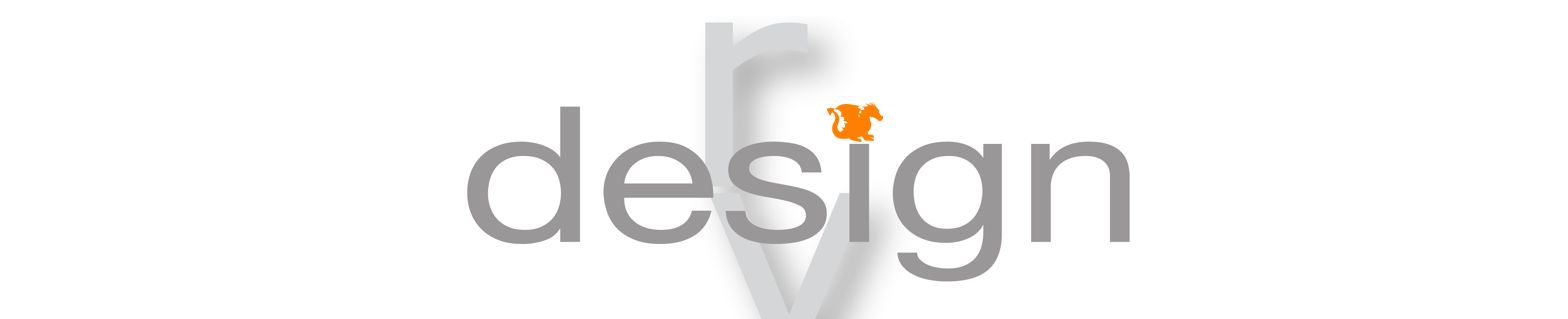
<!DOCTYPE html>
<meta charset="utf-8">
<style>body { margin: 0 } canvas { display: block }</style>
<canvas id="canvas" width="1568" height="319"></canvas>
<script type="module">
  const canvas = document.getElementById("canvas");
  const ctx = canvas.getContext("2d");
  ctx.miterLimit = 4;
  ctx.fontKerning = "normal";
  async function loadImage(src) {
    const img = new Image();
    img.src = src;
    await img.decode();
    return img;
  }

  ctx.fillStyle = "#ffffff";
  ctx.fillRect(0, 0, 1568, 319);
  ctx.drawImage(await loadImage("img1.png"), 464, 16, 670, 303);
</script>
